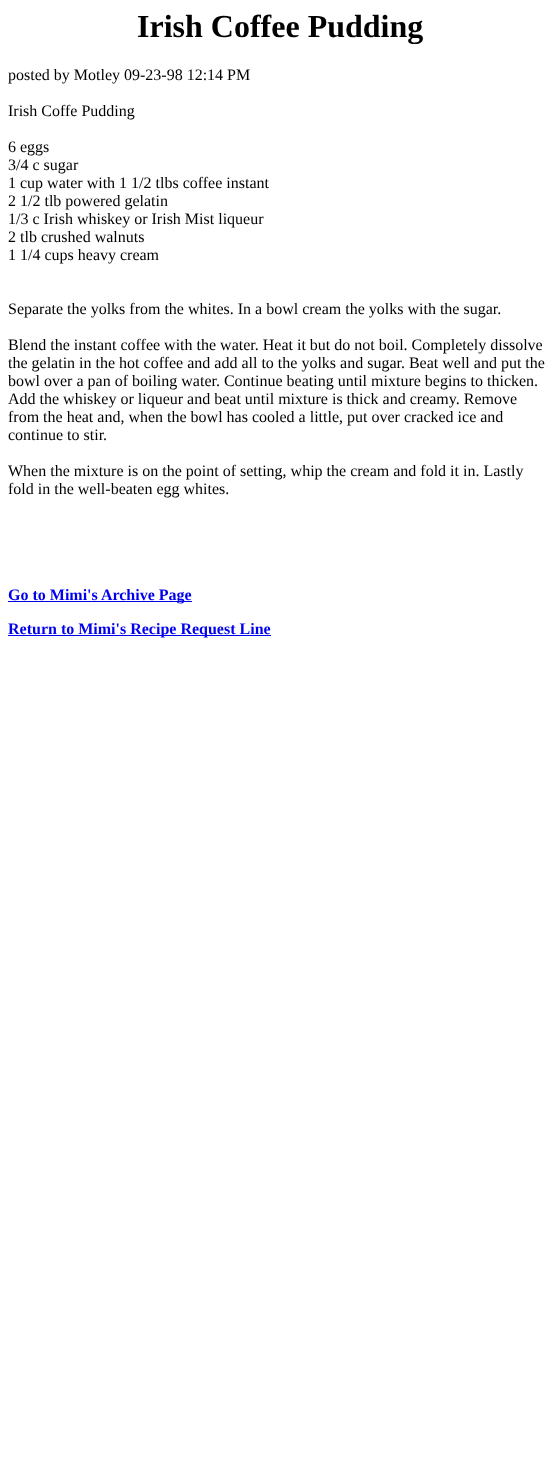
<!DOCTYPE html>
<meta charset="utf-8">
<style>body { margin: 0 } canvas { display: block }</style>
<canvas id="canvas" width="560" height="1474"></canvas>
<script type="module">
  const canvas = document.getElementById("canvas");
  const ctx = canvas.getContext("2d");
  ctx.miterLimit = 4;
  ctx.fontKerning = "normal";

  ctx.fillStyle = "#ffffff";
  ctx.fillRect(0, 0, 560, 1474);
  ctx.font = "bold 32px Liberation Serif";
  ctx.fillStyle = "#000000";
  ctx.fillText("Irish Coffee Pudding", 137, 37);
  ctx.font = "16px Liberation Serif";
  ctx.fillText("posted by Motley 09-23-98 12:14 PM", 8, 80);
  ctx.fillText("Irish Coffe Pudding", 8, 116);
  ctx.fillText("6 eggs", 8, 152);
  ctx.fillText("3/4 c sugar", 8, 170);
  ctx.fillText("1 cup water with 1 1/2 tlbs coffee instant", 8, 188);
  ctx.fillText("2 1/2 tlb powered gelatin", 8, 206);
  ctx.fillText("1/3 c Irish whiskey or Irish Mist liqueur", 8, 224);
  ctx.fillText("2 tlb crushed walnuts", 8, 242);
  ctx.fillText("1 1/4 cups heavy cream", 8, 260);
  ctx.fillText("Separate the yolks from the whites. In a bowl cream the yolks with the sugar.", 8, 314);
  ctx.fillText("Blend the instant coffee with the water. Heat it but do not boil. Completely dissolve", 8, 350);
  ctx.fillText("the gelatin in the hot coffee and add all to the yolks and sugar. Beat well and put the", 8, 368);
  ctx.fillText("bowl over a pan of boiling water. Continue beating until mixture begins to thicken.", 8, 386);
  ctx.fillText("Add the whiskey or liqueur and beat until mixture is thick and creamy. Remove", 8, 404);
  ctx.fillText("from the heat and, when the bowl has cooled a little, put over cracked ice and", 8, 422);
  ctx.fillText("continue to stir.", 8, 440);
  ctx.fillText("When the mixture is on the point of setting, whip the cream and fold it in. Lastly", 8, 476);
  ctx.fillText("fold in the well-beaten egg whites.", 8, 494);
  ctx.fillStyle = "#0000ee";
  ctx.fillRect(8, 601, 184, 1);
  ctx.font = "bold 16px Liberation Serif";
  ctx.fillText("Go to Mimi's Archive Page", 8, 600);
  ctx.fillRect(8, 635, 263, 1);
  ctx.fillText("Return to Mimi's Recipe Request Line", 8, 634);
</script>
